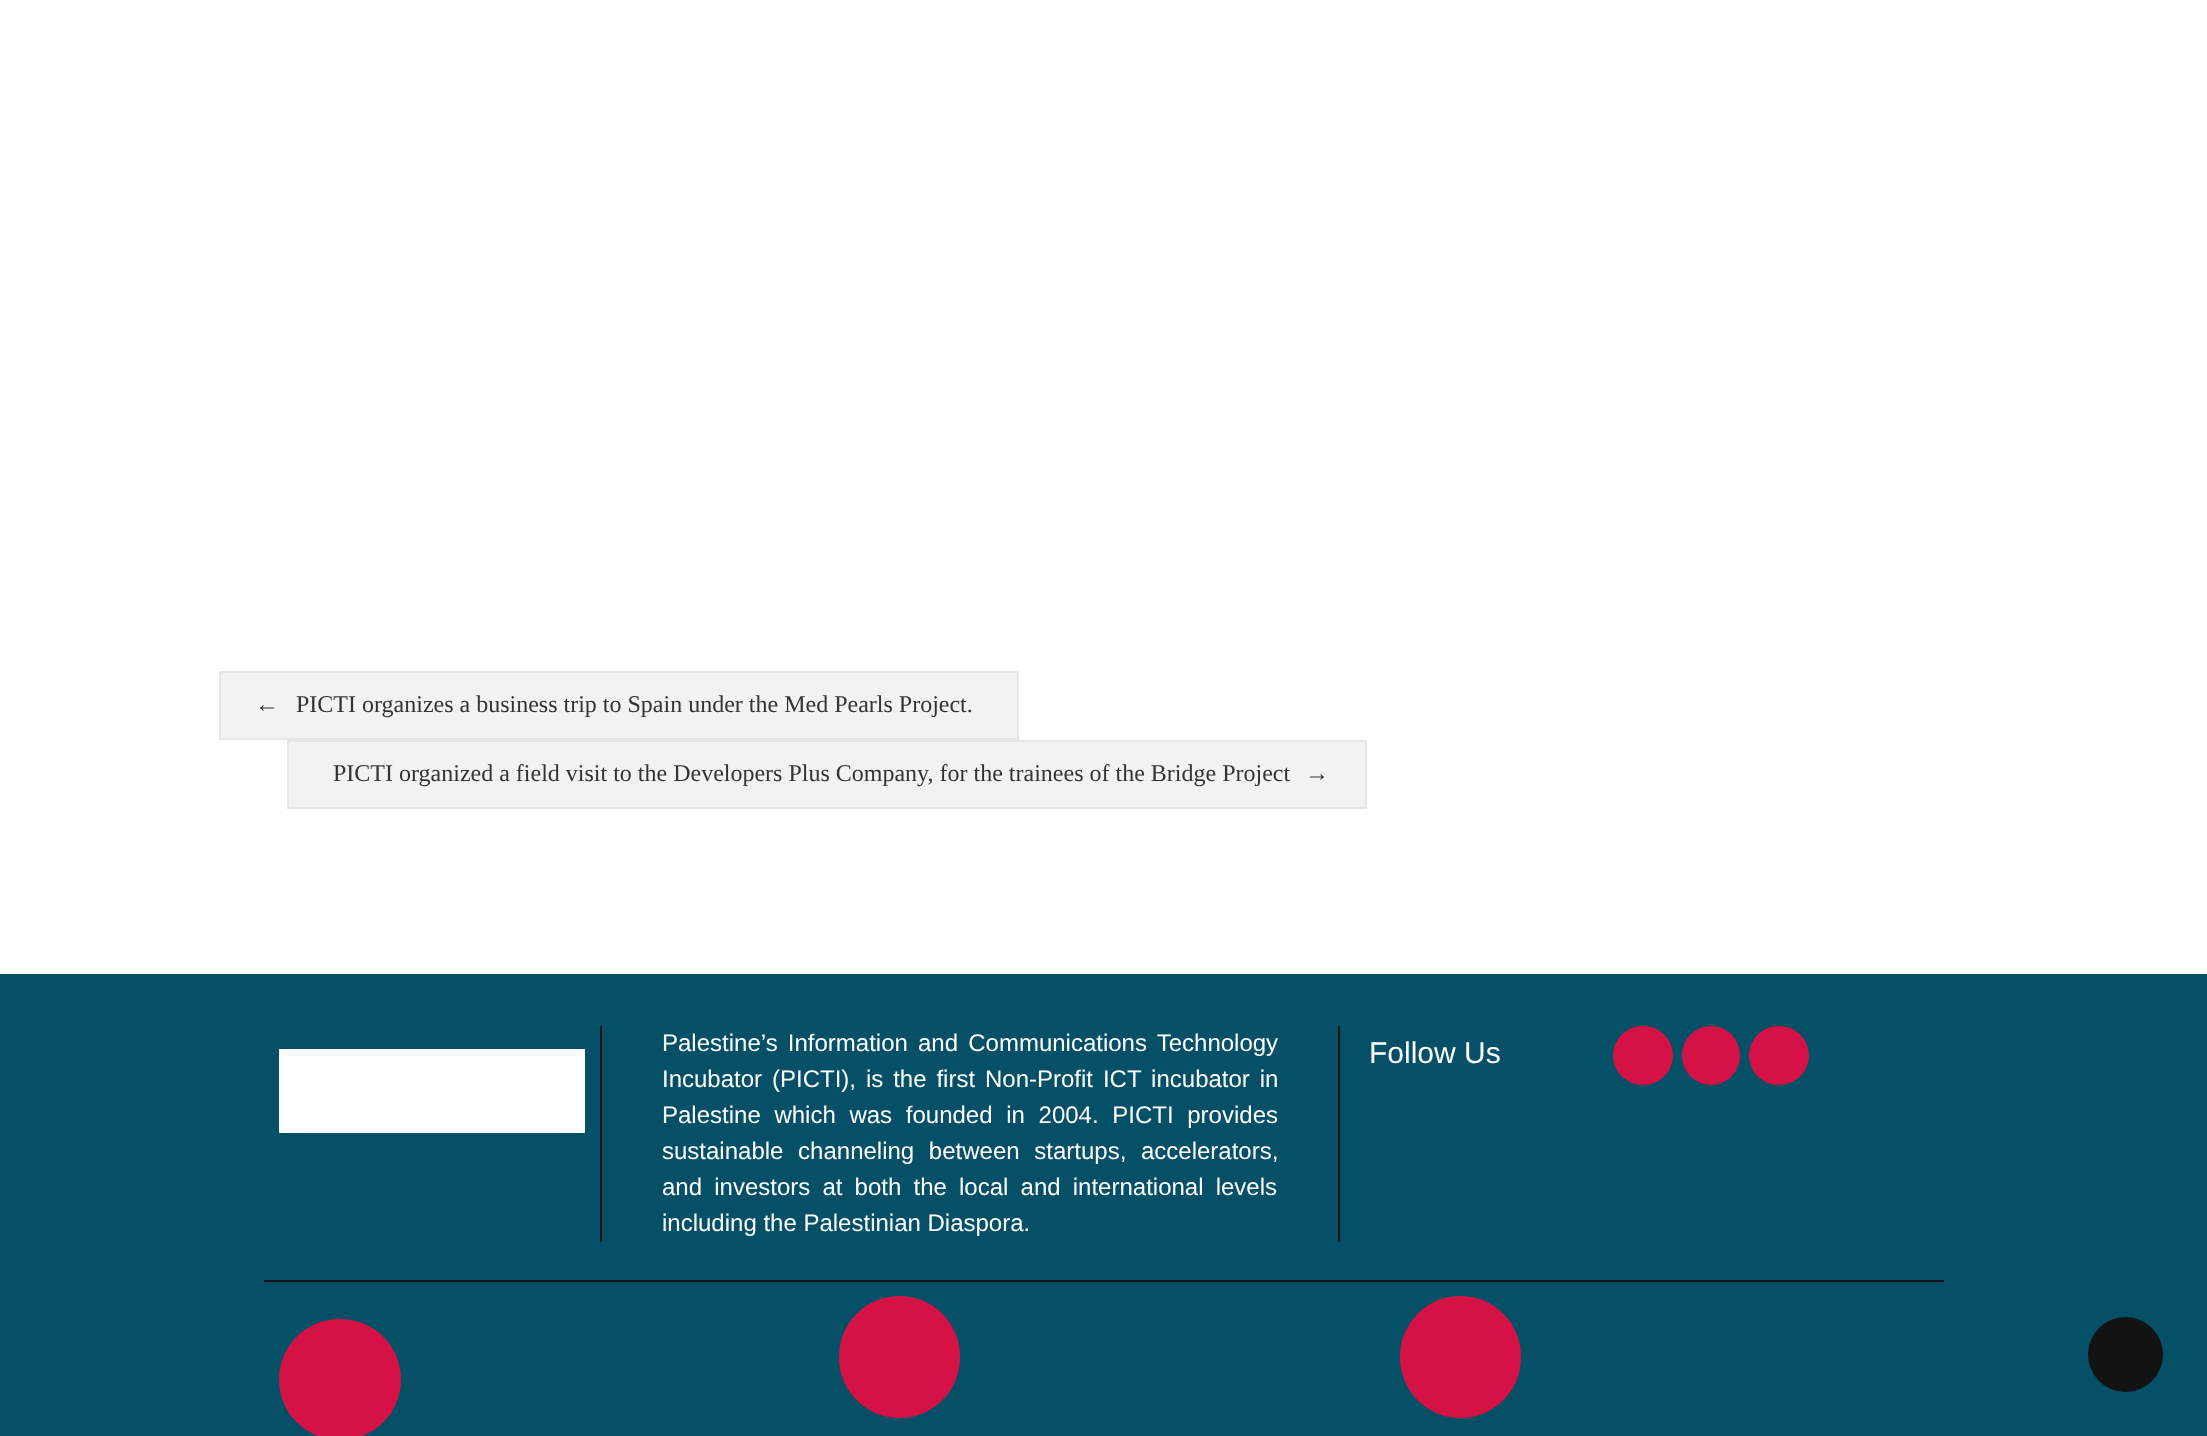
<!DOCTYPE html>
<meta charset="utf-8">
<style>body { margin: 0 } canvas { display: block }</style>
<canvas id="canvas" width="2207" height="1436"></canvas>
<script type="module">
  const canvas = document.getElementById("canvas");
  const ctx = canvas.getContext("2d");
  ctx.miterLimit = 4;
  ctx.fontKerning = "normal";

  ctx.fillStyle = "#ffffff";
  ctx.fillRect(0, 0, 2207, 1436);
  ctx.fillStyle = "#f2f2f2";
  ctx.beginPath();
  ctx.rect(220, 672, 798, 67);
  ctx.fill();
  ctx.strokeStyle = "#e6e6e6";
  ctx.lineWidth = 2;
  ctx.stroke();
  ctx.font = "24px Liberation Serif";
  ctx.fillStyle = "#333333";
  ctx.fillText("←", 255, 712);
  ctx.fillText("PICTI organizes a business trip to Spain under the Med Pearls Project.", 296, 712);
  ctx.fillStyle = "#f2f2f2";
  ctx.beginPath();
  ctx.rect(288, 741, 1078, 67);
  ctx.fill();
  ctx.stroke();
  ctx.fillStyle = "#333333";
  ctx.fillText("PICTI organized a field visit to the Developers Plus Company, for the trainees of the Bridge Project", 333, 781);
  ctx.fillText("→", 1305, 781);
  ctx.fillStyle = "#055066";
  ctx.fillRect(0, 974, 2207, 462);
  ctx.fillStyle = "#ffffff";
  ctx.fillRect(279, 1049, 306, 84);
  ctx.fillStyle = "#171616";
  ctx.fillRect(1338, 1026, 2, 216);
  ctx.fillRect(600, 1026, 2, 216);
  ctx.wordSpacing = "3.5px";
  ctx.font = "24px Liberation Sans";
  ctx.fillStyle = "#ffffff";
  ctx.fillText("Palestine’s Information and Communications Technology", 662, 1051);
  ctx.wordSpacing = "3.25px";
  ctx.fillText("Incubator (PICTI), is the first Non-Profit ICT incubator in", 662, 1087);
  ctx.wordSpacing = "7px";
  ctx.fillText("Palestine which was founded in 2004. PICTI provides", 662, 1123);
  ctx.wordSpacing = "8px";
  ctx.fillText("sustainable channeling between startups, accelerators,", 662, 1159);
  ctx.wordSpacing = "5.5px";
  ctx.fillText("and investors at both the local and international levels", 662, 1195);
  ctx.wordSpacing = "0px";
  ctx.fillText("including the Palestinian Diaspora.", 662, 1231);
  ctx.font = "30px Liberation Sans";
  ctx.fillText("Follow Us", 1369, 1063);
  ctx.fillStyle = "#d51245";
  ctx.beginPath();
  ctx.roundRect(1613, 1026, 60, 59, 29.5);
  ctx.fill();
  ctx.beginPath();
  ctx.roundRect(1682, 1026, 58, 59, 29);
  ctx.fill();
  ctx.beginPath();
  ctx.roundRect(1749, 1026, 60, 59, 29.5);
  ctx.fill();
  ctx.fillStyle = "#171616";
  ctx.fillRect(264, 1280, 1680, 2);
  ctx.fillStyle = "#d51245";
  ctx.beginPath();
  ctx.roundRect(279, 1319, 122, 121, 60.5);
  ctx.fill();
  ctx.beginPath();
  ctx.roundRect(839, 1296, 121, 122, 60.5);
  ctx.fill();
  ctx.beginPath();
  ctx.roundRect(1400, 1296, 121, 122, 60.5);
  ctx.fill();
  ctx.fillStyle = "#131313";
  ctx.beginPath();
  ctx.arc(2125.5, 1354.5, 37.5, 0, Math.PI * 2);
  ctx.fill();
</script>
